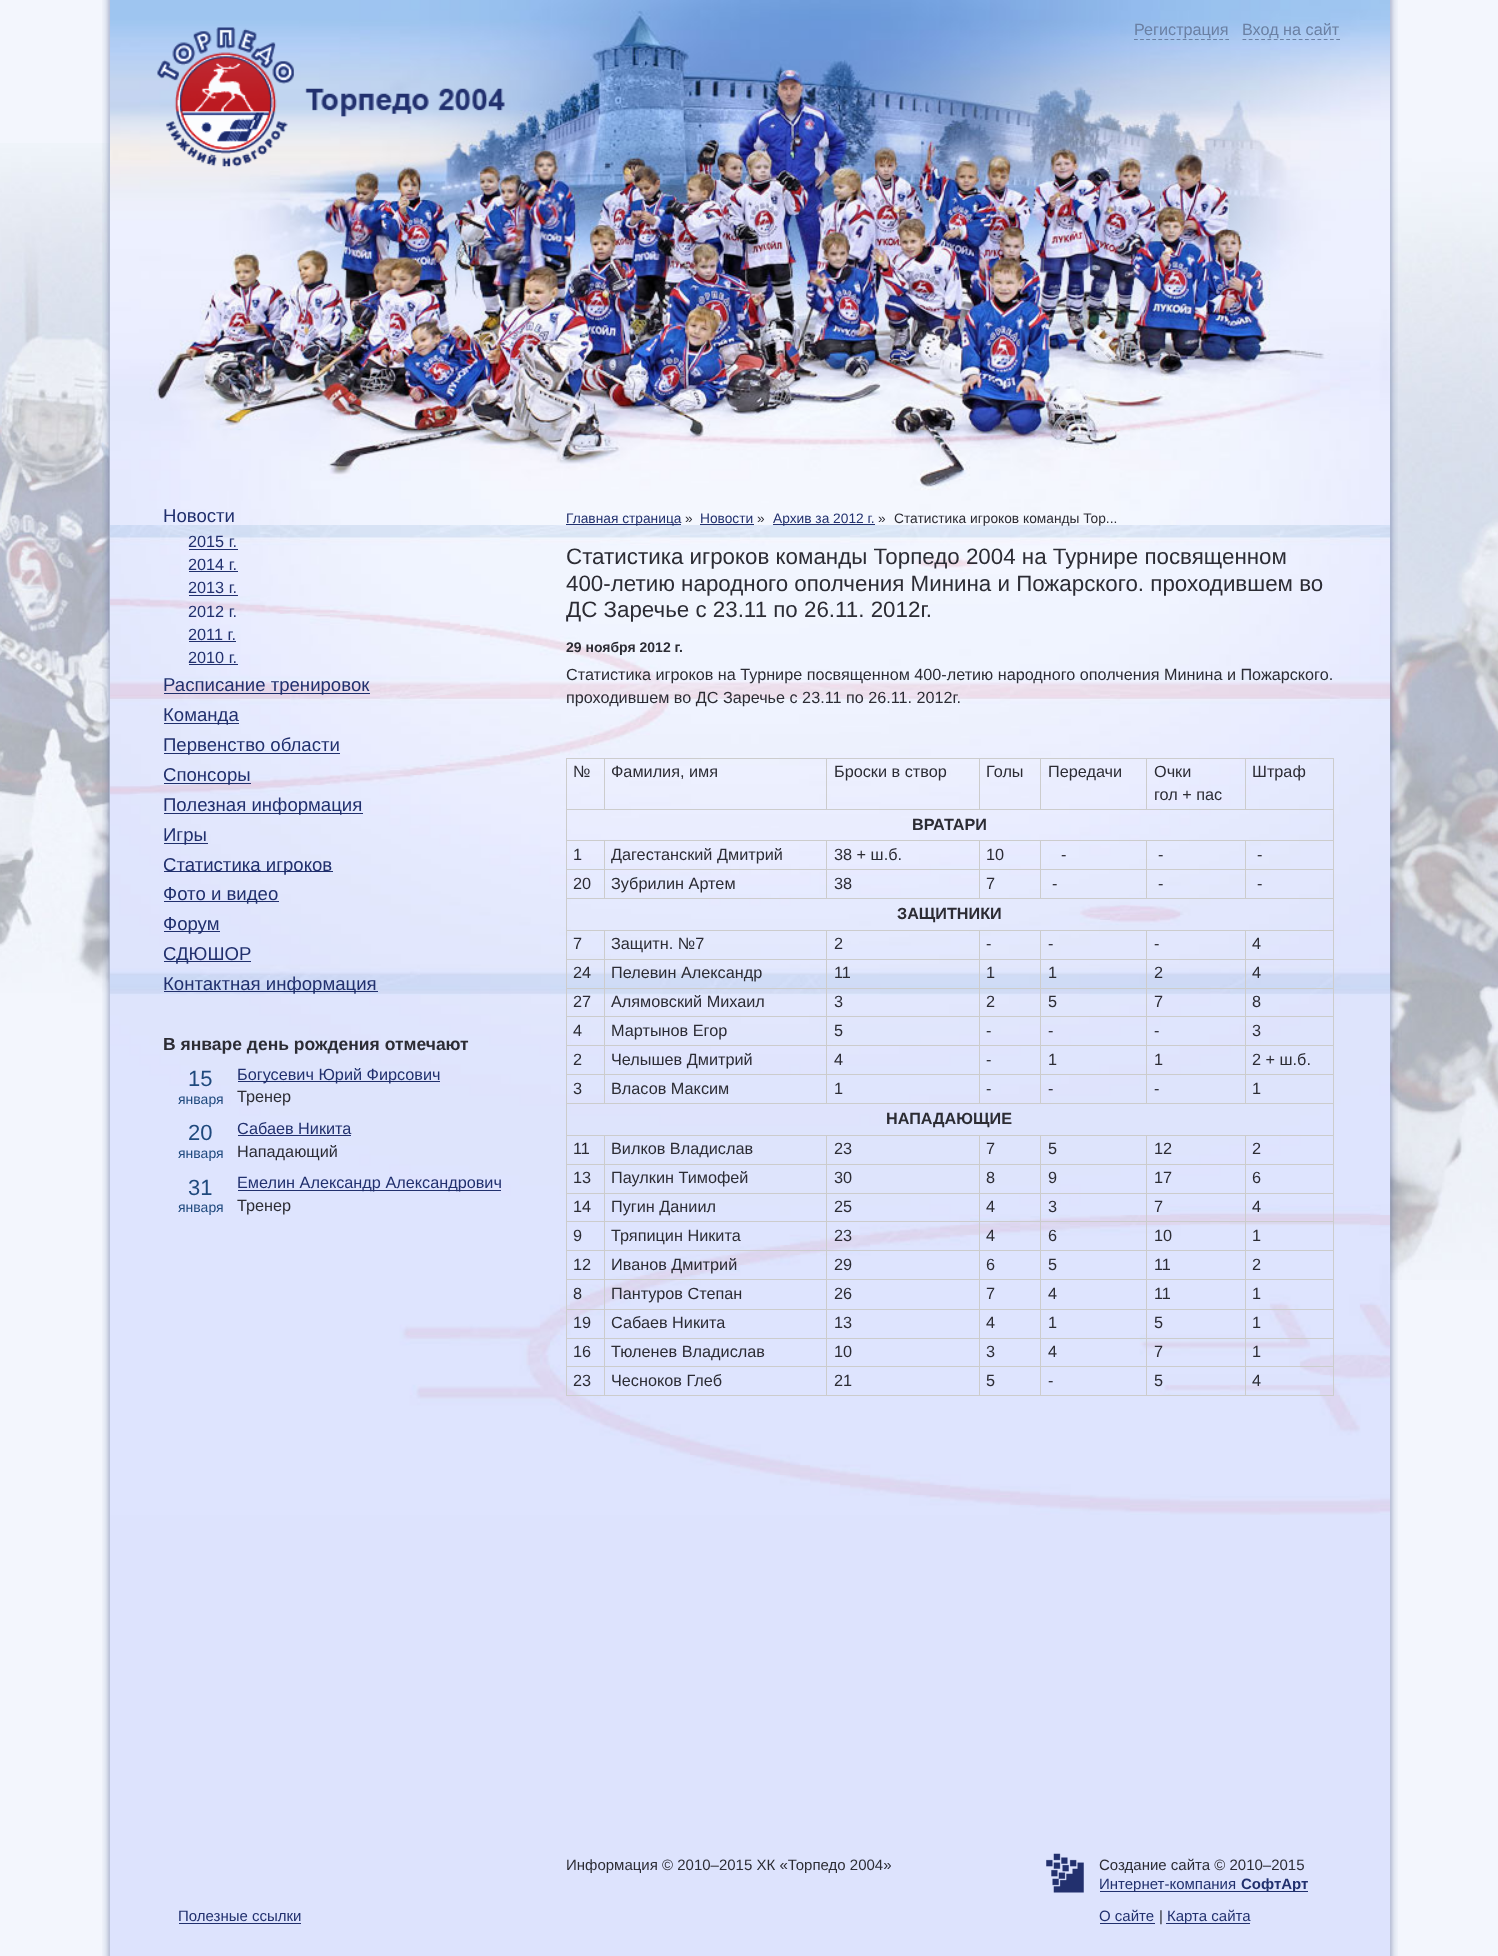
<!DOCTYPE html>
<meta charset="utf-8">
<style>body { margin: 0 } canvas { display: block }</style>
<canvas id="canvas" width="1498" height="1956"></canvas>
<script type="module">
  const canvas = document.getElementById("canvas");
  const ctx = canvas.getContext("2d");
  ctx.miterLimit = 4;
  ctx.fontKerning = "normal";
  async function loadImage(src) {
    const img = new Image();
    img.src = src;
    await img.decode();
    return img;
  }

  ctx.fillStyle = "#f3f6fd";
  ctx.fillRect(0, 0, 1498, 1956);
  ctx.drawImage(await loadImage("img1.png"), 0, 143, 1498, 1137);
  ctx.drawImage(await loadImage("img2.png"), 102, 0, 1296, 1956);
  ctx.fillStyle = "#dde3fd";
  ctx.fillRect(110, 1515, 1280, 441);
  ctx.drawImage(await loadImage("img3.png"), 110, 525, 1280, 990);
  ctx.drawImage(await loadImage("img5.png"), 110, 0, 1280, 525);
  ctx.drawImage(await loadImage("img4.png"), 157, 27, 348, 140);
  ctx.beginPath();
  ctx.moveTo(1134, 39.5);
  ctx.lineTo(1229, 39.5);
  ctx.strokeStyle = "#6b80a3";
  ctx.lineWidth = 1.2;
  ctx.setLineDash([3.75, 2.34]);
  ctx.stroke();
  ctx.font = "16.2px Liberation Sans";
  ctx.fillStyle = "#6b80a3";
  ctx.fillText("Регистрация", 1134, 35);
  ctx.beginPath();
  ctx.moveTo(1242.5, 39.5);
  ctx.lineTo(1340, 39.5);
  ctx.setLineDash([3.75, 2.5]);
  ctx.stroke();
  ctx.fillText("Вход на сайт", 1242, 35);
  ctx.font = "18.6px Liberation Sans";
  ctx.fillStyle = "#21306e";
  ctx.fillText("Новости", 163, 522);
  ctx.font = "16.25px Liberation Sans";
  ctx.fillText("2015 г.", 188, 547);
  ctx.fillRect(189, 549, 49, 1);
  ctx.fillText("2014 г.", 188, 570);
  ctx.fillRect(189, 571, 49, 1);
  ctx.fillText("2013 г.", 188, 593);
  ctx.fillRect(189, 595, 49, 1);
  ctx.fillText("2012 г.", 188, 617);
  ctx.fillText("2011 г.", 188, 640);
  ctx.fillRect(189, 641, 47, 1);
  ctx.fillText("2010 г.", 188, 663);
  ctx.fillRect(189, 664, 49, 1);
  ctx.fillRect(164, 693, 206, 1);
  ctx.font = "18.6px Liberation Sans";
  ctx.fillText("Расписание тренировок", 163, 691);
  ctx.fillRect(164, 723, 75, 1);
  ctx.fillText("Команда", 163, 721);
  ctx.fillRect(164, 753, 176, 1);
  ctx.fillText("Первенство области", 163, 751);
  ctx.fillRect(164, 783, 87, 1);
  ctx.fillText("Спонсоры", 163, 781);
  ctx.fillRect(164, 813, 199, 1);
  ctx.fillText("Полезная информация", 163, 811);
  ctx.fillRect(164, 843, 44, 1);
  ctx.fillText("Игры", 163, 841);
  ctx.fillRect(164, 871, 169, 1);
  ctx.fillText("Статистика игроков", 163, 871);
  ctx.fillRect(164, 901, 115, 1);
  ctx.fillText("Фото и видео", 163, 900);
  ctx.fillRect(164, 931, 56, 1);
  ctx.fillText("Форум", 163, 930);
  ctx.fillRect(164, 961, 87, 1);
  ctx.fillText("СДЮШОР", 163, 960);
  ctx.fillRect(164, 991, 214, 1);
  ctx.fillText("Контактная информация", 163, 990);
  ctx.font = "bold 17.5px Liberation Sans";
  ctx.fillStyle = "#2c2c34";
  ctx.fillText("В январе день рождения отмечают", 163, 1050);
  ctx.font = "22px Liberation Sans";
  ctx.fillStyle = "#1f497d";
  ctx.fillText("15", 188, 1086);
  ctx.font = "14px Liberation Sans";
  ctx.fillText("января", 178, 1104);
  ctx.fillStyle = "#21306e";
  ctx.fillRect(238, 1081, 202, 1);
  ctx.font = "16.25px Liberation Sans";
  ctx.fillText("Богусевич Юрий Фирсович", 237, 1080);
  ctx.fillStyle = "#2c2c34";
  ctx.fillText("Тренер", 237, 1102);
  ctx.font = "22px Liberation Sans";
  ctx.fillStyle = "#1f497d";
  ctx.fillText("20", 188, 1140);
  ctx.font = "14px Liberation Sans";
  ctx.fillText("января", 178, 1158);
  ctx.font = "16.25px Liberation Sans";
  ctx.fillStyle = "#21306e";
  ctx.fillText("Сабаев Никита", 237, 1134);
  ctx.fillRect(238, 1135, 113, 1);
  ctx.fillStyle = "#2c2c34";
  ctx.fillText("Нападающий", 237, 1157);
  ctx.font = "22px Liberation Sans";
  ctx.fillStyle = "#1f497d";
  ctx.fillText("31", 188, 1195);
  ctx.font = "14px Liberation Sans";
  ctx.fillText("января", 178, 1212);
  ctx.fillStyle = "#21306e";
  ctx.fillRect(238, 1190, 263, 1);
  ctx.font = "16.25px Liberation Sans";
  ctx.fillText("Емелин Александр Александрович", 237, 1188);
  ctx.fillStyle = "#2c2c34";
  ctx.fillText("Тренер", 237, 1211);
  ctx.fillStyle = "#21306e";
  ctx.fillRect(566, 524, 115, 1);
  ctx.font = "13.75px Liberation Sans";
  ctx.fillText("Главная страница", 566, 523);
  ctx.fillStyle = "#2c2c34";
  ctx.fillText("»", 685, 523);
  ctx.fillStyle = "#21306e";
  ctx.fillText("Новости", 700, 523);
  ctx.fillRect(700, 524, 54, 1);
  ctx.fillStyle = "#2c2c34";
  ctx.fillText("»", 757, 523);
  ctx.fillStyle = "#21306e";
  ctx.fillRect(773, 524, 102, 1);
  ctx.fillText("Архив за 2012 г.", 773, 523);
  ctx.fillStyle = "#2c2c34";
  ctx.fillText("»", 878, 523);
  ctx.fillText("Статистика игроков команды Тор...", 894, 523);
  ctx.font = "22.35px Liberation Sans";
  ctx.fillText("Статистика игроков команды Торпедо 2004 на Турнире посвященном", 566, 564);
  ctx.fillText("400-летию народного ополчения Минина и Пожарского. проходившем во", 566, 591);
  ctx.fillText("ДС Заречье с 23.11 по 26.11. 2012г.", 566, 617);
  ctx.font = "bold 14px Liberation Sans";
  ctx.fillText("29 ноября 2012 г.", 566, 652);
  ctx.font = "16.2px Liberation Sans";
  ctx.fillText("Статистика игроков на Турнире посвященном 400-летию народного ополчения Минина и Пожарского.", 566, 680);
  ctx.fillText("проходившем во ДС Заречье с 23.11 по 26.11. 2012г.", 566, 703);
  ctx.fillStyle = "#cccccc";
  ctx.fillRect(566, 758, 768, 1);
  ctx.fillRect(1333, 758, 1, 638);
  ctx.fillRect(566, 1395, 768, 1);
  ctx.fillRect(566, 758, 1, 638);
  ctx.font = "16.25px Liberation Sans";
  ctx.fillStyle = "#2c2c34";
  ctx.fillText("№", 573, 777);
  ctx.fillStyle = "#cccccc";
  ctx.fillRect(566, 809, 768, 1);
  ctx.fillRect(604, 758, 1, 52);
  ctx.fillStyle = "#2c2c34";
  ctx.fillText("Фамилия, имя", 611, 777);
  ctx.fillStyle = "#cccccc";
  ctx.fillRect(826, 758, 1, 52);
  ctx.fillStyle = "#2c2c34";
  ctx.fillText("Броски в створ", 834, 777);
  ctx.fillStyle = "#cccccc";
  ctx.fillRect(979, 758, 1, 52);
  ctx.fillStyle = "#2c2c34";
  ctx.fillText("Голы", 986, 777);
  ctx.fillStyle = "#cccccc";
  ctx.fillRect(1040, 758, 1, 52);
  ctx.fillStyle = "#2c2c34";
  ctx.fillText("Передачи", 1048, 777);
  ctx.fillStyle = "#cccccc";
  ctx.fillRect(1146, 758, 1, 52);
  ctx.fillStyle = "#2c2c34";
  ctx.fillText("Очки", 1154, 777);
  ctx.fillText("гол + пас", 1154, 800);
  ctx.fillStyle = "#cccccc";
  ctx.fillRect(1245, 758, 1, 52);
  ctx.fillStyle = "#2c2c34";
  ctx.fillText("Штраф", 1252, 777);
  ctx.font = "bold 16.2px Liberation Sans";
  ctx.fillText("ВРАТАРИ", 912, 830);
  ctx.fillStyle = "#cccccc";
  ctx.fillRect(1245, 840, 89, 1);
  ctx.fillRect(1245, 869, 89, 1);
  ctx.fillRect(566, 898, 768, 1);
  ctx.fillRect(1245, 869, 1, 30);
  ctx.fillRect(1146, 869, 100, 1);
  ctx.fillRect(1245, 840, 1, 30);
  ctx.fillRect(1146, 840, 100, 1);
  ctx.fillRect(1146, 869, 1, 30);
  ctx.fillRect(1040, 869, 108, 1);
  ctx.fillRect(1146, 840, 1, 30);
  ctx.fillRect(1040, 840, 108, 1);
  ctx.fillRect(1040, 869, 1, 30);
  ctx.fillRect(979, 869, 62, 1);
  ctx.fillRect(1040, 840, 1, 30);
  ctx.fillRect(979, 840, 62, 1);
  ctx.fillRect(979, 869, 1, 30);
  ctx.fillRect(826, 869, 154, 1);
  ctx.fillRect(979, 840, 1, 30);
  ctx.fillRect(826, 840, 154, 1);
  ctx.fillRect(826, 869, 1, 30);
  ctx.fillRect(604, 869, 224, 1);
  ctx.fillRect(826, 840, 1, 30);
  ctx.fillRect(604, 840, 224, 1);
  ctx.fillRect(604, 869, 1, 30);
  ctx.fillRect(566, 869, 39, 1);
  ctx.fillRect(604, 840, 1, 30);
  ctx.fillRect(566, 840, 39, 1);
  ctx.font = "16.25px Liberation Sans";
  ctx.fillStyle = "#2c2c34";
  ctx.fillText("1", 573, 860);
  ctx.fillText("Дагестанский Дмитрий", 611, 860);
  ctx.fillText("38 + ш.б.", 834, 860);
  ctx.fillText("10", 986, 860);
  ctx.fillText("-", 1061, 860);
  ctx.fillText("-", 1158, 860);
  ctx.fillText("-", 1257, 860);
  ctx.fillText("20", 573, 889);
  ctx.fillText("Зубрилин Артем", 611, 889);
  ctx.fillText("38", 834, 889);
  ctx.fillText("7", 986, 889);
  ctx.fillText("-", 1052, 889);
  ctx.fillText("-", 1158, 889);
  ctx.fillText("-", 1257, 889);
  ctx.font = "bold 16.2px Liberation Sans";
  ctx.fillText("ЗАЩИТНИКИ", 897, 919);
  ctx.fillStyle = "#cccccc";
  ctx.fillRect(1245, 930, 89, 1);
  ctx.fillRect(1245, 959, 89, 1);
  ctx.fillRect(1245, 988, 89, 1);
  ctx.fillRect(1245, 1016, 89, 1);
  ctx.fillRect(1245, 1045, 89, 1);
  ctx.fillRect(1245, 1074, 89, 1);
  ctx.fillRect(566, 1103, 768, 1);
  ctx.fillRect(1245, 1074, 1, 30);
  ctx.fillRect(1146, 1074, 100, 1);
  ctx.fillRect(1245, 1045, 1, 30);
  ctx.fillRect(1146, 1045, 100, 1);
  ctx.fillRect(1245, 1016, 1, 30);
  ctx.fillRect(1146, 1016, 100, 1);
  ctx.fillRect(1245, 988, 1, 30);
  ctx.fillRect(1146, 988, 100, 1);
  ctx.fillRect(1245, 959, 1, 30);
  ctx.fillRect(1146, 959, 100, 1);
  ctx.fillRect(1245, 930, 1, 30);
  ctx.fillRect(1146, 930, 100, 1);
  ctx.fillRect(1146, 1074, 1, 30);
  ctx.fillRect(1040, 1074, 108, 1);
  ctx.fillRect(1146, 1045, 1, 30);
  ctx.fillRect(1040, 1045, 108, 1);
  ctx.fillRect(1146, 1016, 1, 30);
  ctx.fillRect(1040, 1016, 108, 1);
  ctx.fillRect(1146, 988, 1, 30);
  ctx.fillRect(1040, 988, 108, 1);
  ctx.fillRect(1146, 959, 1, 30);
  ctx.fillRect(1040, 959, 108, 1);
  ctx.fillRect(1146, 930, 1, 30);
  ctx.fillRect(1040, 930, 108, 1);
  ctx.fillRect(1040, 1074, 1, 30);
  ctx.fillRect(979, 1074, 62, 1);
  ctx.fillRect(1040, 1045, 1, 30);
  ctx.fillRect(979, 1045, 62, 1);
  ctx.fillRect(1040, 1016, 1, 30);
  ctx.fillRect(979, 1016, 62, 1);
  ctx.fillRect(1040, 988, 1, 30);
  ctx.fillRect(979, 988, 62, 1);
  ctx.fillRect(1040, 959, 1, 30);
  ctx.fillRect(979, 959, 62, 1);
  ctx.fillRect(1040, 930, 1, 30);
  ctx.fillRect(979, 930, 62, 1);
  ctx.fillRect(979, 1074, 1, 30);
  ctx.fillRect(826, 1074, 154, 1);
  ctx.fillRect(979, 1045, 1, 30);
  ctx.fillRect(826, 1045, 154, 1);
  ctx.fillRect(979, 1016, 1, 30);
  ctx.fillRect(826, 1016, 154, 1);
  ctx.fillRect(979, 988, 1, 30);
  ctx.fillRect(826, 988, 154, 1);
  ctx.fillRect(979, 959, 1, 30);
  ctx.fillRect(826, 959, 154, 1);
  ctx.fillRect(979, 930, 1, 30);
  ctx.fillRect(826, 930, 154, 1);
  ctx.fillRect(826, 1074, 1, 30);
  ctx.fillRect(604, 1074, 224, 1);
  ctx.fillRect(826, 1045, 1, 30);
  ctx.fillRect(604, 1045, 224, 1);
  ctx.fillRect(826, 1016, 1, 30);
  ctx.fillRect(604, 1016, 224, 1);
  ctx.fillRect(826, 988, 1, 30);
  ctx.fillRect(604, 988, 224, 1);
  ctx.fillRect(826, 959, 1, 30);
  ctx.fillRect(604, 959, 224, 1);
  ctx.fillRect(826, 930, 1, 30);
  ctx.fillRect(604, 930, 224, 1);
  ctx.fillRect(604, 1074, 1, 30);
  ctx.fillRect(566, 1074, 39, 1);
  ctx.fillRect(604, 1045, 1, 30);
  ctx.fillRect(566, 1045, 39, 1);
  ctx.fillRect(604, 1016, 1, 30);
  ctx.fillRect(566, 1016, 39, 1);
  ctx.fillRect(604, 988, 1, 30);
  ctx.fillRect(566, 988, 39, 1);
  ctx.fillRect(604, 959, 1, 30);
  ctx.fillRect(566, 959, 39, 1);
  ctx.fillRect(604, 930, 1, 30);
  ctx.fillRect(566, 930, 39, 1);
  ctx.font = "16.25px Liberation Sans";
  ctx.fillStyle = "#2c2c34";
  ctx.fillText("7", 573, 949);
  ctx.fillText("Защитн. №7", 611, 949);
  ctx.fillText("2", 834, 949);
  ctx.fillText("-", 986, 949);
  ctx.fillText("-", 1048, 949);
  ctx.fillText("-", 1154, 949);
  ctx.fillText("4", 1252, 949);
  ctx.fillText("24", 573, 978);
  ctx.fillText("Пелевин Александр", 611, 978);
  ctx.fillText("11", 834, 978);
  ctx.fillText("1", 986, 978);
  ctx.fillText("1", 1048, 978);
  ctx.fillText("2", 1154, 978);
  ctx.fillText("4", 1252, 978);
  ctx.fillText("27", 573, 1007);
  ctx.fillText("Алямовский Михаил", 611, 1007);
  ctx.fillText("3", 834, 1007);
  ctx.fillText("2", 986, 1007);
  ctx.fillText("5", 1048, 1007);
  ctx.fillText("7", 1154, 1007);
  ctx.fillText("8", 1252, 1007);
  ctx.fillText("4", 573, 1036);
  ctx.fillText("Мартынов Егор", 611, 1036);
  ctx.fillText("5", 834, 1036);
  ctx.fillText("-", 986, 1036);
  ctx.fillText("-", 1048, 1036);
  ctx.fillText("-", 1154, 1036);
  ctx.fillText("3", 1252, 1036);
  ctx.fillText("2", 573, 1065);
  ctx.fillText("Челышев Дмитрий", 611, 1065);
  ctx.fillText("4", 834, 1065);
  ctx.fillText("-", 986, 1065);
  ctx.fillText("1", 1048, 1065);
  ctx.fillText("1", 1154, 1065);
  ctx.fillText("2 + ш.б.", 1252, 1065);
  ctx.fillText("3", 573, 1094);
  ctx.fillText("Власов Максим", 611, 1094);
  ctx.fillText("1", 834, 1094);
  ctx.fillText("-", 986, 1094);
  ctx.fillText("-", 1048, 1094);
  ctx.fillText("-", 1154, 1094);
  ctx.fillText("1", 1252, 1094);
  ctx.font = "bold 16.2px Liberation Sans";
  ctx.fillText("НАПАДАЮЩИЕ", 886, 1124);
  ctx.fillStyle = "#cccccc";
  ctx.fillRect(1245, 1135, 89, 1);
  ctx.fillRect(1245, 1164, 89, 1);
  ctx.fillRect(1245, 1193, 89, 1);
  ctx.fillRect(1245, 1221, 89, 1);
  ctx.fillRect(1245, 1250, 89, 1);
  ctx.fillRect(1245, 1279, 89, 1);
  ctx.fillRect(1245, 1309, 89, 1);
  ctx.fillRect(1245, 1338, 89, 1);
  ctx.fillRect(1245, 1366, 89, 1);
  ctx.fillRect(1245, 1366, 1, 30);
  ctx.fillRect(1146, 1366, 100, 1);
  ctx.fillRect(1245, 1338, 1, 30);
  ctx.fillRect(1146, 1338, 100, 1);
  ctx.fillRect(1245, 1309, 1, 30);
  ctx.fillRect(1146, 1309, 100, 1);
  ctx.fillRect(1245, 1279, 1, 31);
  ctx.fillRect(1146, 1279, 100, 1);
  ctx.fillRect(1245, 1250, 1, 30);
  ctx.fillRect(1146, 1250, 100, 1);
  ctx.fillRect(1245, 1221, 1, 30);
  ctx.fillRect(1146, 1221, 100, 1);
  ctx.fillRect(1245, 1193, 1, 30);
  ctx.fillRect(1146, 1193, 100, 1);
  ctx.fillRect(1245, 1164, 1, 30);
  ctx.fillRect(1146, 1164, 100, 1);
  ctx.fillRect(1245, 1135, 1, 30);
  ctx.fillRect(1146, 1135, 100, 1);
  ctx.fillRect(1146, 1366, 1, 30);
  ctx.fillRect(1040, 1366, 108, 1);
  ctx.fillRect(1146, 1338, 1, 30);
  ctx.fillRect(1040, 1338, 108, 1);
  ctx.fillRect(1146, 1309, 1, 30);
  ctx.fillRect(1040, 1309, 108, 1);
  ctx.fillRect(1146, 1279, 1, 31);
  ctx.fillRect(1040, 1279, 108, 1);
  ctx.fillRect(1146, 1250, 1, 30);
  ctx.fillRect(1040, 1250, 108, 1);
  ctx.fillRect(1146, 1221, 1, 30);
  ctx.fillRect(1040, 1221, 108, 1);
  ctx.fillRect(1146, 1193, 1, 30);
  ctx.fillRect(1040, 1193, 108, 1);
  ctx.fillRect(1146, 1164, 1, 30);
  ctx.fillRect(1040, 1164, 108, 1);
  ctx.fillRect(1146, 1135, 1, 30);
  ctx.fillRect(1040, 1135, 108, 1);
  ctx.fillRect(1040, 1366, 1, 30);
  ctx.fillRect(979, 1366, 62, 1);
  ctx.fillRect(1040, 1338, 1, 30);
  ctx.fillRect(979, 1338, 62, 1);
  ctx.fillRect(1040, 1309, 1, 30);
  ctx.fillRect(979, 1309, 62, 1);
  ctx.fillRect(1040, 1279, 1, 31);
  ctx.fillRect(979, 1279, 62, 1);
  ctx.fillRect(1040, 1250, 1, 30);
  ctx.fillRect(979, 1250, 62, 1);
  ctx.fillRect(1040, 1221, 1, 30);
  ctx.fillRect(979, 1221, 62, 1);
  ctx.fillRect(1040, 1193, 1, 30);
  ctx.fillRect(979, 1193, 62, 1);
  ctx.fillRect(1040, 1164, 1, 30);
  ctx.fillRect(979, 1164, 62, 1);
  ctx.fillRect(1040, 1135, 1, 30);
  ctx.fillRect(979, 1135, 62, 1);
  ctx.fillRect(979, 1366, 1, 30);
  ctx.fillRect(826, 1366, 154, 1);
  ctx.fillRect(979, 1338, 1, 30);
  ctx.fillRect(826, 1338, 154, 1);
  ctx.fillRect(979, 1309, 1, 30);
  ctx.fillRect(826, 1309, 154, 1);
  ctx.fillRect(979, 1279, 1, 31);
  ctx.fillRect(826, 1279, 154, 1);
  ctx.fillRect(979, 1250, 1, 30);
  ctx.fillRect(826, 1250, 154, 1);
  ctx.fillRect(979, 1221, 1, 30);
  ctx.fillRect(826, 1221, 154, 1);
  ctx.fillRect(979, 1193, 1, 30);
  ctx.fillRect(826, 1193, 154, 1);
  ctx.fillRect(979, 1164, 1, 30);
  ctx.fillRect(826, 1164, 154, 1);
  ctx.fillRect(979, 1135, 1, 30);
  ctx.fillRect(826, 1135, 154, 1);
  ctx.fillRect(826, 1366, 1, 30);
  ctx.fillRect(604, 1366, 224, 1);
  ctx.fillRect(826, 1338, 1, 30);
  ctx.fillRect(604, 1338, 224, 1);
  ctx.fillRect(826, 1309, 1, 30);
  ctx.fillRect(604, 1309, 224, 1);
  ctx.fillRect(826, 1279, 1, 31);
  ctx.fillRect(604, 1279, 224, 1);
  ctx.fillRect(826, 1250, 1, 30);
  ctx.fillRect(604, 1250, 224, 1);
  ctx.fillRect(826, 1221, 1, 30);
  ctx.fillRect(604, 1221, 224, 1);
  ctx.fillRect(826, 1193, 1, 30);
  ctx.fillRect(604, 1193, 224, 1);
  ctx.fillRect(826, 1164, 1, 30);
  ctx.fillRect(604, 1164, 224, 1);
  ctx.fillRect(826, 1135, 1, 30);
  ctx.fillRect(604, 1135, 224, 1);
  ctx.fillRect(604, 1366, 1, 30);
  ctx.fillRect(566, 1366, 39, 1);
  ctx.fillRect(604, 1338, 1, 30);
  ctx.fillRect(566, 1338, 39, 1);
  ctx.fillRect(604, 1309, 1, 30);
  ctx.fillRect(566, 1309, 39, 1);
  ctx.fillRect(604, 1279, 1, 31);
  ctx.fillRect(566, 1279, 39, 1);
  ctx.fillRect(604, 1250, 1, 30);
  ctx.fillRect(566, 1250, 39, 1);
  ctx.fillRect(604, 1221, 1, 30);
  ctx.fillRect(566, 1221, 39, 1);
  ctx.fillRect(604, 1193, 1, 30);
  ctx.fillRect(566, 1193, 39, 1);
  ctx.fillRect(604, 1164, 1, 30);
  ctx.fillRect(566, 1164, 39, 1);
  ctx.fillRect(604, 1135, 1, 30);
  ctx.fillRect(566, 1135, 39, 1);
  ctx.font = "16.25px Liberation Sans";
  ctx.fillStyle = "#2c2c34";
  ctx.fillText("11", 573, 1154);
  ctx.fillText("Вилков Владислав", 611, 1154);
  ctx.fillText("23", 834, 1154);
  ctx.fillText("7", 986, 1154);
  ctx.fillText("5", 1048, 1154);
  ctx.fillText("12", 1154, 1154);
  ctx.fillText("2", 1252, 1154);
  ctx.fillText("13", 573, 1183);
  ctx.fillText("Паулкин Тимофей", 611, 1183);
  ctx.fillText("30", 834, 1183);
  ctx.fillText("8", 986, 1183);
  ctx.fillText("9", 1048, 1183);
  ctx.fillText("17", 1154, 1183);
  ctx.fillText("6", 1252, 1183);
  ctx.fillText("14", 573, 1212);
  ctx.fillText("Пугин Даниил", 611, 1212);
  ctx.fillText("25", 834, 1212);
  ctx.fillText("4", 986, 1212);
  ctx.fillText("3", 1048, 1212);
  ctx.fillText("7", 1154, 1212);
  ctx.fillText("4", 1252, 1212);
  ctx.fillText("9", 573, 1241);
  ctx.fillText("Тряпицин Никита", 611, 1241);
  ctx.fillText("23", 834, 1241);
  ctx.fillText("4", 986, 1241);
  ctx.fillText("6", 1048, 1241);
  ctx.fillText("10", 1154, 1241);
  ctx.fillText("1", 1252, 1241);
  ctx.fillText("12", 573, 1270);
  ctx.fillText("Иванов Дмитрий", 611, 1270);
  ctx.fillText("29", 834, 1270);
  ctx.fillText("6", 986, 1270);
  ctx.fillText("5", 1048, 1270);
  ctx.fillText("11", 1154, 1270);
  ctx.fillText("2", 1252, 1270);
  ctx.fillText("8", 573, 1299);
  ctx.fillText("Пантуров Степан", 611, 1299);
  ctx.fillText("26", 834, 1299);
  ctx.fillText("7", 986, 1299);
  ctx.fillText("4", 1048, 1299);
  ctx.fillText("11", 1154, 1299);
  ctx.fillText("1", 1252, 1299);
  ctx.fillText("19", 573, 1328);
  ctx.fillText("Сабаев Никита", 611, 1328);
  ctx.fillText("13", 834, 1328);
  ctx.fillText("4", 986, 1328);
  ctx.fillText("1", 1048, 1328);
  ctx.fillText("5", 1154, 1328);
  ctx.fillText("1", 1252, 1328);
  ctx.fillText("16", 573, 1357);
  ctx.fillText("Тюленев Владислав", 611, 1357);
  ctx.fillText("10", 834, 1357);
  ctx.fillText("3", 986, 1357);
  ctx.fillText("4", 1048, 1357);
  ctx.fillText("7", 1154, 1357);
  ctx.fillText("1", 1252, 1357);
  ctx.fillText("23", 573, 1386);
  ctx.fillText("Чесноков Глеб", 611, 1386);
  ctx.fillText("21", 834, 1386);
  ctx.fillText("5", 986, 1386);
  ctx.fillText("-", 1048, 1386);
  ctx.fillText("5", 1154, 1386);
  ctx.fillText("4", 1252, 1386);
  ctx.font = "15px Liberation Sans";
  ctx.fillText("Информация © 2010–2015 ХК «Торпедо 2004»", 566, 1870);
  ctx.drawImage(await loadImage("img6.png"), 1046, 1853, 38, 40);
  ctx.fillText("Создание сайта © 2010–2015", 1099, 1870);
  ctx.fillStyle = "#21306e";
  ctx.fillRect(1100, 1891, 208, 1);
  ctx.fillText("Интернет-компания", 1099, 1889);
  ctx.font = "bold 15px Liberation Sans";
  ctx.fillText("СофтАрт", 1241, 1889);
  ctx.font = "15px Liberation Sans";
  ctx.fillText("О сайте", 1099, 1921);
  ctx.fillRect(1100, 1923, 55, 1);
  ctx.fillStyle = "#2c2c34";
  ctx.fillText("|", 1159, 1921);
  ctx.fillStyle = "#21306e";
  ctx.fillRect(1166, 1923, 84, 1);
  ctx.fillText("Карта сайта", 1167, 1921);
  ctx.fillText("Полезные ссылки", 178, 1921);
  ctx.fillRect(179, 1923, 122, 1);
</script>
